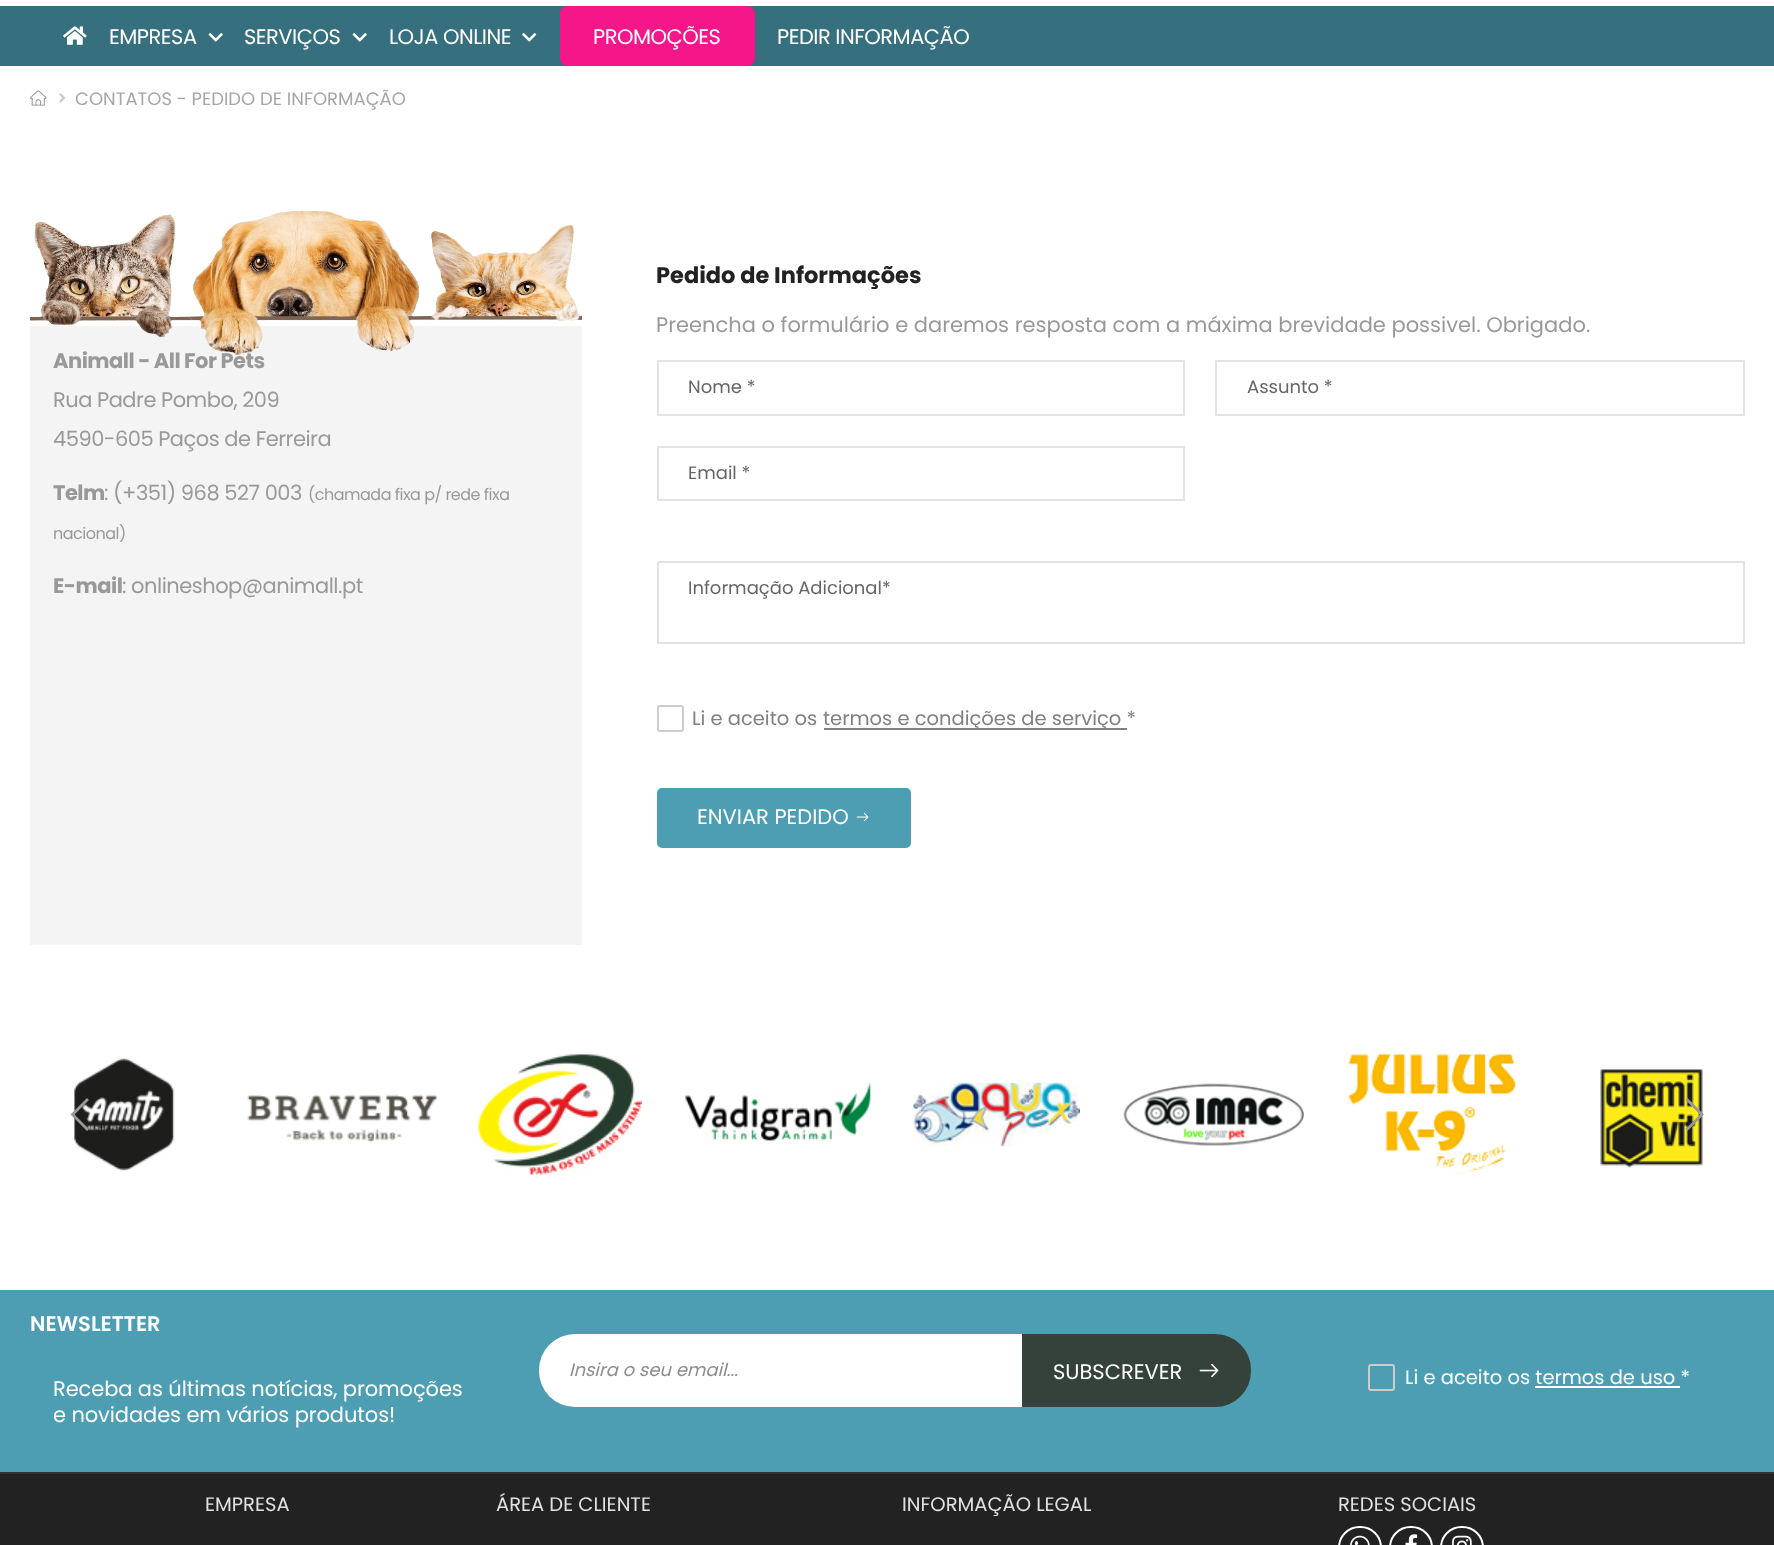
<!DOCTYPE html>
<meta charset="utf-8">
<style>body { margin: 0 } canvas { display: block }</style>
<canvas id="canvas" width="1774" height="1545"></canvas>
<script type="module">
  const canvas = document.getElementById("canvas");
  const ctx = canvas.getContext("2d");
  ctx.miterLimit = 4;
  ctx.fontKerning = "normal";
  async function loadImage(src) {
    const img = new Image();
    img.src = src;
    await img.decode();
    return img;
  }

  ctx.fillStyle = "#ffffff";
  ctx.fillRect(0, 0, 1774, 1545);
  ctx.fillStyle = "#366f7d";
  ctx.fillRect(0, 6, 1774, 60);
  ctx.drawImage(await loadImage("img1.png"), 63, 26, 24, 19);
  ctx.letterSpacing = "-0.5px";
  ctx.font = "21px Poppins";
  ctx.fillStyle = "#ffffff";
  ctx.fillText("EMPRESA", 109, 44);
  ctx.drawImage(await loadImage("img2.png"), 208, 33, 15, 9);
  ctx.fillText("SERVIÇOS", 244, 44);
  ctx.drawImage(await loadImage("img2.png"), 352, 33, 15, 9);
  ctx.fillText("LOJA ONLINE", 389, 44);
  ctx.drawImage(await loadImage("img3.png"), 522, 33, 15, 9);
  ctx.fillStyle = "#f51789";
  ctx.beginPath();
  ctx.roundRect(560, 6, 195, 60, 8);
  ctx.fill();
  ctx.fillStyle = "#ffffff";
  ctx.fillText("PROMOÇÕES", 593, 44);
  ctx.fillText("PEDIR INFORMAÇÃO", 777, 44);
  ctx.drawImage(await loadImage("img4.png"), 30, 90, 17, 16);
  ctx.drawImage(await loadImage("img5.png"), 59, 93, 7, 10);
  ctx.letterSpacing = "0px";
  ctx.font = "18px Poppins";
  ctx.fillStyle = "#a6a6a6";
  ctx.fillText("CONTATOS - PEDIDO DE INFORMAÇÃO", 75, 105);
  ctx.fillStyle = "#f4f4f4";
  ctx.fillRect(30, 326, 552, 619);
  ctx.drawImage(await loadImage("img6.png"), 30, 210, 552, 145);
  ctx.letterSpacing = "-0.5px";
  ctx.font = "bold 21px Poppins";
  ctx.fillStyle = "#999999";
  ctx.fillText("Animall - All For Pets", 53, 368);
  ctx.font = "21px Poppins";
  ctx.fillText("Rua Padre Pombo, 209", 53, 407);
  ctx.fillText("4590-605 Paços de Ferreira", 53, 446);
  ctx.font = "bold 21px Poppins";
  ctx.fillText("Telm", 53, 500);
  ctx.font = "21px Poppins";
  ctx.fillText(": (+351) 968 527 003", 104, 500);
  ctx.font = "16px Poppins";
  ctx.fillText("(chamada fixa p/ rede fixa", 308, 500);
  ctx.fillText("nacional)", 53, 539);
  ctx.font = "bold 21px Poppins";
  ctx.fillText("E-mail", 53, 593);
  ctx.font = "21px Poppins";
  ctx.fillText(": onlineshop@animall.pt", 122, 593);
  ctx.letterSpacing = "0px";
  ctx.font = "bold 22.5px Poppins";
  ctx.fillStyle = "#222222";
  ctx.fillText("Pedido de Informações", 656, 283);
  ctx.font = "21px Poppins";
  ctx.fillStyle = "#999999";
  ctx.fillText("Preencha o formulário e daremos resposta com a máxima brevidade possivel. Obrigado.", 656, 332);
  ctx.strokeStyle = "#e3e3e3";
  ctx.lineWidth = 2;
  ctx.strokeRect(658, 361, 526, 54);
  ctx.font = "18px Poppins";
  ctx.fillStyle = "#666666";
  ctx.fillText("Nome *", 688, 393);
  ctx.strokeRect(1216, 361, 528, 54);
  ctx.fillText("Assunto *", 1247, 393);
  ctx.strokeRect(658, 447, 526, 53);
  ctx.fillText("Email *", 688, 479);
  ctx.strokeRect(658, 562, 1086, 81);
  ctx.fillText("Informação Adicional*", 688, 594);
  ctx.beginPath();
  ctx.roundRect(658, 706, 25, 25, 2);
  ctx.strokeStyle = "#cccccc";
  ctx.stroke();
  ctx.font = "19.5px Poppins";
  ctx.fillStyle = "#808080";
  ctx.fillText("Li e aceito os", 692, 725);
  ctx.fillRect(824, 728, 303, 2);
  ctx.fillText("termos e condições de serviço *", 823, 725);
  ctx.fillStyle = "#4d9eb3";
  ctx.beginPath();
  ctx.roundRect(658.5, 789.5, 251, 57, 3.5);
  ctx.fill();
  ctx.strokeStyle = "#4d9eb3";
  ctx.lineWidth = 3;
  ctx.stroke();
  ctx.font = "21px Poppins";
  ctx.fillStyle = "#ffffff";
  ctx.fillText("ENVIAR PEDIDO", 697, 824);
  ctx.drawImage(await loadImage("img7.png"), 856, 812, 13, 10);
  ctx.drawImage(await loadImage("img8.png"), 74, 1058, 101, 114);
  ctx.drawImage(await loadImage("img9.png"), 247, 1094, 190, 49);
  ctx.drawImage(await loadImage("img10.png"), 478, 1054, 164, 121);
  ctx.drawImage(await loadImage("img11.png"), 685, 1082, 186, 61);
  ctx.drawImage(await loadImage("img12.png"), 913, 1082, 167, 65);
  ctx.drawImage(await loadImage("img13.png"), 1123, 1083, 181, 63);
  ctx.drawImage(await loadImage("img14.png"), 1348, 1054, 168, 121);
  ctx.drawImage(await loadImage("img15.png"), 1600, 1069, 103, 99);
  ctx.fillStyle = "#999999";
  ctx.beginPath();
  ctx.moveTo(87, 1098);
  ctx.lineTo(70.5, 1114.5);
  ctx.lineTo(87, 1131);
  ctx.lineTo(89, 1129);
  ctx.lineTo(74.5, 1114.5);
  ctx.lineTo(89, 1100);
  ctx.closePath();
  ctx.fill();
  ctx.beginPath();
  ctx.moveTo(1687.5, 1098);
  ctx.lineTo(1685.5, 1100);
  ctx.lineTo(1700, 1114.5);
  ctx.lineTo(1685.5, 1129);
  ctx.lineTo(1687.5, 1131);
  ctx.lineTo(1704, 1114.5);
  ctx.closePath();
  ctx.fill();
  ctx.fillStyle = "#222222";
  ctx.fillRect(0, 1474, 1774, 71);
  ctx.fillStyle = "#4d9eb3";
  ctx.fillRect(0, 1290, 1774, 182);
  ctx.fillStyle = "#333333";
  ctx.fillRect(0, 1472, 1774, 2);
  ctx.font = "600 21px Poppins";
  ctx.fillStyle = "#ffffff";
  ctx.fillText("NEWSLETTER", 30, 1331);
  ctx.letterSpacing = "-0.1px";
  ctx.font = "21px Poppins";
  ctx.fillText("Receba as últimas notícias, promoções", 53, 1396);
  ctx.fillText("e novidades em vários produtos!", 53, 1422);
  ctx.beginPath();
  ctx.roundRect(539, 1334, 483, 73, [36, 0, 0, 36]);
  ctx.fill();
  ctx.letterSpacing = "0px";
  ctx.font = "italic 18px Poppins";
  ctx.fillStyle = "#8d8d8d";
  ctx.fillText("Insira o seu email...", 569, 1376);
  ctx.fillStyle = "#35413b";
  ctx.beginPath();
  ctx.roundRect(1023.5, 1335.5, 226, 70, [0, 34.5, 34.5, 0]);
  ctx.fill();
  ctx.strokeStyle = "#35413b";
  ctx.stroke();
  ctx.font = "21px Poppins";
  ctx.fillStyle = "#ffffff";
  ctx.fillText("SUBSCREVER", 1053, 1379);
  ctx.drawImage(await loadImage("img16.png"), 1199, 1363, 20, 15);
  ctx.beginPath();
  ctx.roundRect(1369, 1365, 25, 25, 2);
  ctx.strokeStyle = "#cccccc";
  ctx.lineWidth = 2;
  ctx.stroke();
  ctx.font = "19.5px Poppins";
  ctx.fillText("Li e aceito os termos de uso *", 1405, 1384);
  ctx.fillRect(1535, 1386, 145, 2);
  ctx.fillStyle = "#e1e1e1";
  ctx.fillText("EMPRESA", 205, 1511);
  ctx.fillText("ÁREA DE CLIENTE", 496, 1511);
  ctx.fillText("INFORMAÇÃO LEGAL", 902, 1511);
  ctx.fillText("REDES SOCIAIS", 1338, 1511);
  ctx.beginPath();
  ctx.roundRect(1339, 1527, 42, 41, 20.5);
  ctx.strokeStyle = "#ffffff";
  ctx.stroke();
  ctx.drawImage(await loadImage("img17.png"), 1350, 1535, 20, 10);
  ctx.beginPath();
  ctx.roundRect(1390, 1527, 42, 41, 20.5);
  ctx.stroke();
  ctx.drawImage(await loadImage("img18.png"), 1405, 1534, 13, 11);
  ctx.beginPath();
  ctx.roundRect(1441, 1527, 42, 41, 20.5);
  ctx.stroke();
  ctx.drawImage(await loadImage("img19.png"), 1452, 1535, 20, 10);
</script>
